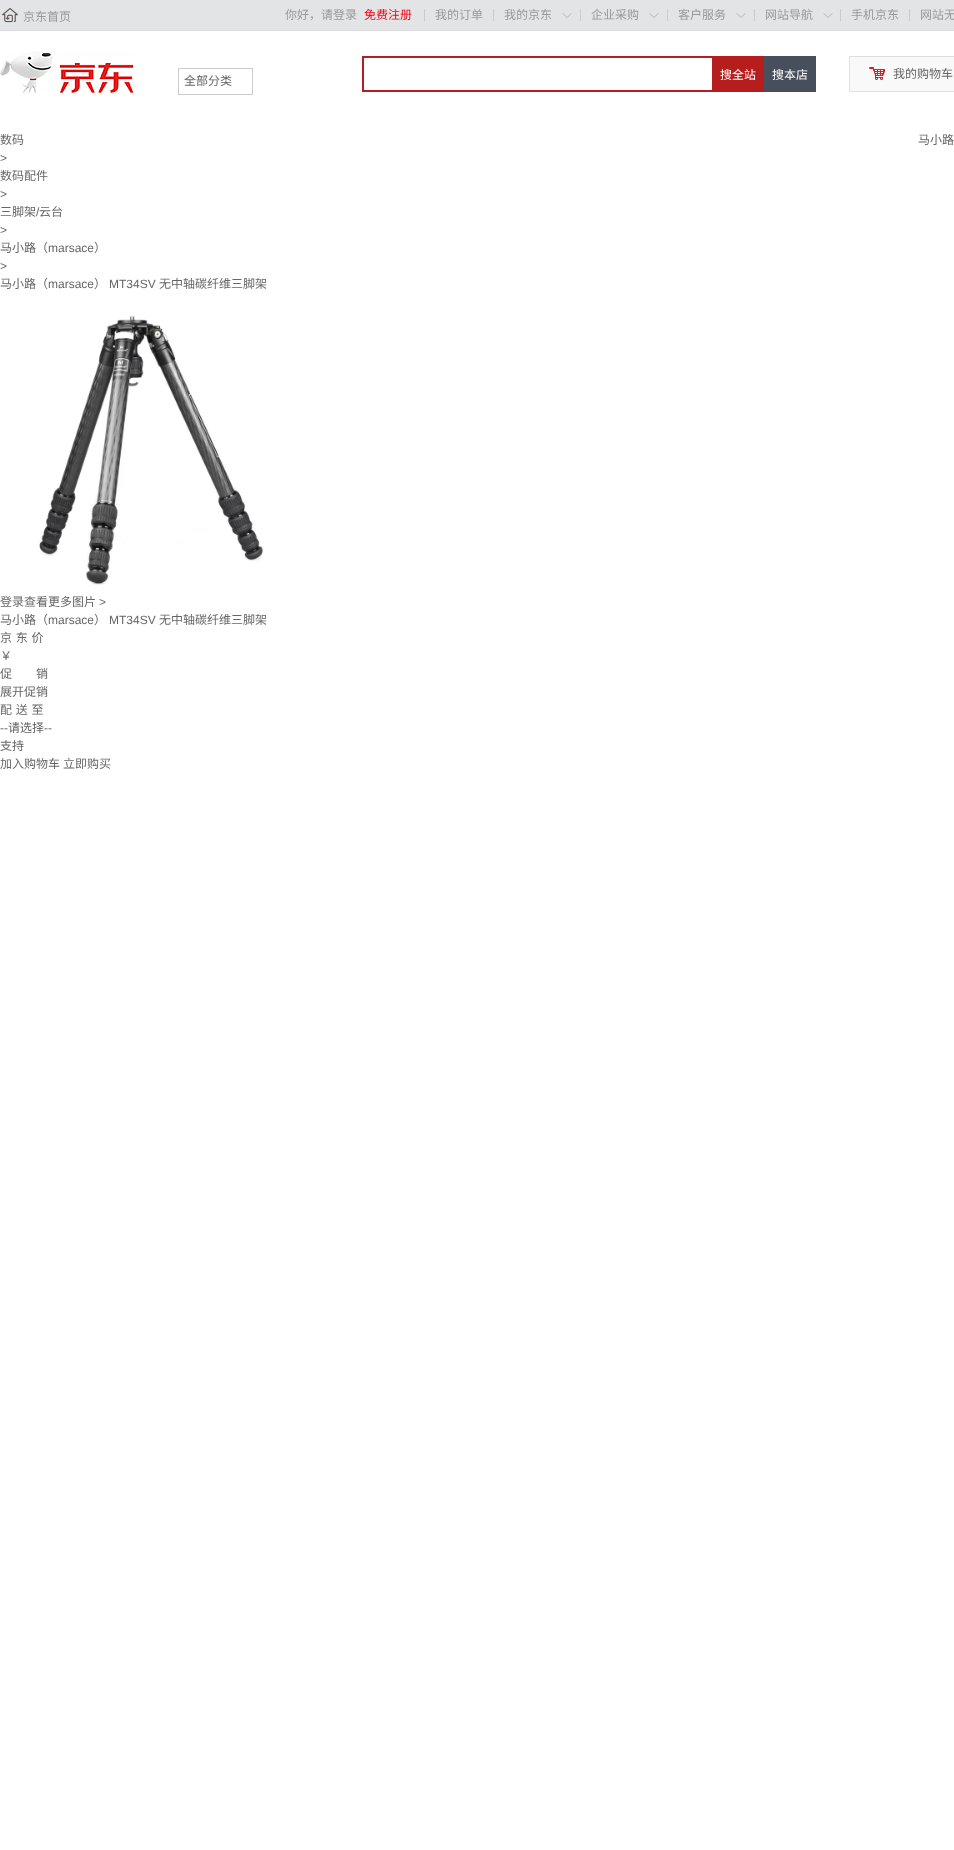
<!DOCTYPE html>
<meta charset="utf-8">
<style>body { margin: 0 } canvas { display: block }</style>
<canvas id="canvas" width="954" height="1850"></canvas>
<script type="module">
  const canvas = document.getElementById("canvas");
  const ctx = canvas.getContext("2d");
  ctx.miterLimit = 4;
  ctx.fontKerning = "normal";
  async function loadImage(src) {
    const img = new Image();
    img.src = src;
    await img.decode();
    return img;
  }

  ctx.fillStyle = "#ffffff";
  ctx.fillRect(0, 0, 954, 1850);
  ctx.fillStyle = "#e3e4e5";
  ctx.fillRect(0, 0, 954, 30);
  ctx.fillStyle = "#dddddd";
  ctx.fillRect(0, 30, 954, 1);
  ctx.drawImage(await loadImage("img1.png"), 2, 8, 16, 15);
  ctx.font = "12px Noto Sans CJK SC";
  ctx.fillStyle = "#999999";
  ctx.fillText("京东首页", 23, 21);
  ctx.fillText("你好，请登录", 285, 19);
  ctx.fillStyle = "#f30213";
  ctx.fillText("免费注册", 364, 19);
  ctx.fillStyle = "#cccccc";
  ctx.fillRect(424, 9, 1, 12);
  ctx.fillStyle = "#999999";
  ctx.fillText("我的订单", 435, 19);
  ctx.fillStyle = "#cccccc";
  ctx.fillRect(493, 9, 1, 12);
  ctx.fillStyle = "#999999";
  ctx.fillText("我的京东", 504, 19);
  ctx.drawImage(await loadImage("img2.png"), 562, 13, 10, 5);
  ctx.fillStyle = "#cccccc";
  ctx.fillRect(580, 9, 1, 12);
  ctx.fillStyle = "#999999";
  ctx.fillText("企业采购", 591, 19);
  ctx.drawImage(await loadImage("img2.png"), 649, 13, 10, 5);
  ctx.fillStyle = "#cccccc";
  ctx.fillRect(667, 9, 1, 12);
  ctx.fillStyle = "#999999";
  ctx.fillText("客户服务", 678, 19);
  ctx.drawImage(await loadImage("img2.png"), 736, 13, 10, 5);
  ctx.fillStyle = "#cccccc";
  ctx.fillRect(754, 9, 1, 12);
  ctx.fillStyle = "#999999";
  ctx.fillText("网站导航", 765, 19);
  ctx.drawImage(await loadImage("img2.png"), 823, 13, 10, 5);
  ctx.fillStyle = "#cccccc";
  ctx.fillRect(840, 9, 1, 12);
  ctx.fillStyle = "#999999";
  ctx.fillText("手机京东", 851, 19);
  ctx.fillStyle = "#cccccc";
  ctx.fillRect(909, 9, 1, 12);
  ctx.fillStyle = "#999999";
  ctx.fillText("网站无", 920, 19);
  ctx.drawImage(await loadImage("img3.png"), 0, 51, 134, 42);
  ctx.strokeStyle = "#cccccc";
  ctx.strokeRect(178.5, 68.5, 74, 26);
  ctx.fillStyle = "#666666";
  ctx.fillText("全部分类", 184, 85);
  ctx.fillStyle = "#b61d1d";
  ctx.fillRect(362, 56, 350, 2);
  ctx.fillRect(362, 90, 350, 2);
  ctx.fillRect(362, 56, 2, 36);
  ctx.fillRect(712, 56, 52, 36);
  ctx.fillStyle = "#ffffff";
  ctx.fillText("搜全站", 720, 79);
  ctx.fillStyle = "#474e5c";
  ctx.fillRect(764, 56, 52, 36);
  ctx.fillStyle = "#ffffff";
  ctx.fillText("搜本店", 772, 79);
  ctx.fillStyle = "#f9f9f9";
  ctx.beginPath();
  ctx.rect(849.5, 56.5, 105, 35);
  ctx.fill();
  ctx.strokeStyle = "#dfdfdf";
  ctx.stroke();
  ctx.drawImage(await loadImage("img4.png"), 869, 67, 16, 13);
  ctx.fillStyle = "#666666";
  ctx.fillText("我的购物车", 893, 78);
  ctx.fillText("数码", 0, 144);
  ctx.font = "12px Liberation Sans";
  ctx.fillText(">", 0, 162);
  ctx.font = "12px Noto Sans CJK SC";
  ctx.fillText("数码配件", 0, 180);
  ctx.font = "12px Liberation Sans";
  ctx.fillText(">", 0, 198);
  ctx.font = "12px Noto Sans CJK SC";
  ctx.fillText("三脚架", 0, 216);
  ctx.font = "12px Liberation Sans";
  ctx.fillText("/", 36, 216);
  ctx.font = "12px Noto Sans CJK SC";
  ctx.fillText("云台", 39, 216);
  ctx.font = "12px Liberation Sans";
  ctx.fillText(">", 0, 234);
  ctx.font = "12px Noto Sans CJK SC";
  ctx.fillText("马小路（", 0, 252);
  ctx.font = "12px Liberation Sans";
  ctx.fillText("marsace", 48, 252);
  ctx.font = "12px Noto Sans CJK SC";
  ctx.fillText("）", 94, 252);
  ctx.font = "12px Liberation Sans";
  ctx.fillText(">", 0, 270);
  ctx.font = "12px Noto Sans CJK SC";
  ctx.fillText("马小路（", 0, 288);
  ctx.font = "12px Liberation Sans";
  ctx.fillText("marsace", 48, 288);
  ctx.font = "12px Noto Sans CJK SC";
  ctx.fillText("）", 94, 288);
  ctx.font = "12px Liberation Sans";
  ctx.fillText("MT34SV", 109, 288);
  ctx.font = "12px Noto Sans CJK SC";
  ctx.fillText("无中轴碳纤维三脚架", 159, 288);
  ctx.fillText("马小路", 918, 144);
  ctx.drawImage(await loadImage("img5.png"), 39, 316, 225, 269);
  ctx.fillText("登录查看更多图片", 0, 606);
  ctx.font = "12px Liberation Sans";
  ctx.fillText(">", 99, 606);
  ctx.font = "12px Noto Sans CJK SC";
  ctx.fillText("马小路（", 0, 624);
  ctx.font = "12px Liberation Sans";
  ctx.fillText("marsace", 48, 624);
  ctx.font = "12px Noto Sans CJK SC";
  ctx.fillText("）", 94, 624);
  ctx.font = "12px Liberation Sans";
  ctx.fillText("MT34SV", 109, 624);
  ctx.font = "12px Noto Sans CJK SC";
  ctx.fillText("无中轴碳纤维三脚架", 159, 624);
  ctx.wordSpacing = "1px";
  ctx.fillText("京 东 价", 0, 642);
  ctx.wordSpacing = "0px";
  ctx.fillText("￥", 0, 660);
  ctx.fillText("促　　销", 0, 678);
  ctx.fillText("展开促销", 0, 696);
  ctx.wordSpacing = "1px";
  ctx.fillText("配 送 至", 0, 714);
  ctx.wordSpacing = "0px";
  ctx.font = "12px Liberation Sans";
  ctx.fillText("--", 0, 732);
  ctx.font = "12px Noto Sans CJK SC";
  ctx.fillText("请选择", 8, 732);
  ctx.font = "12px Liberation Sans";
  ctx.fillText("--", 44, 732);
  ctx.font = "12px Noto Sans CJK SC";
  ctx.fillText("支持", 0, 750);
  ctx.fillText("加入购物车", 0, 768);
  ctx.fillText("立即购买", 63, 768);
</script>
